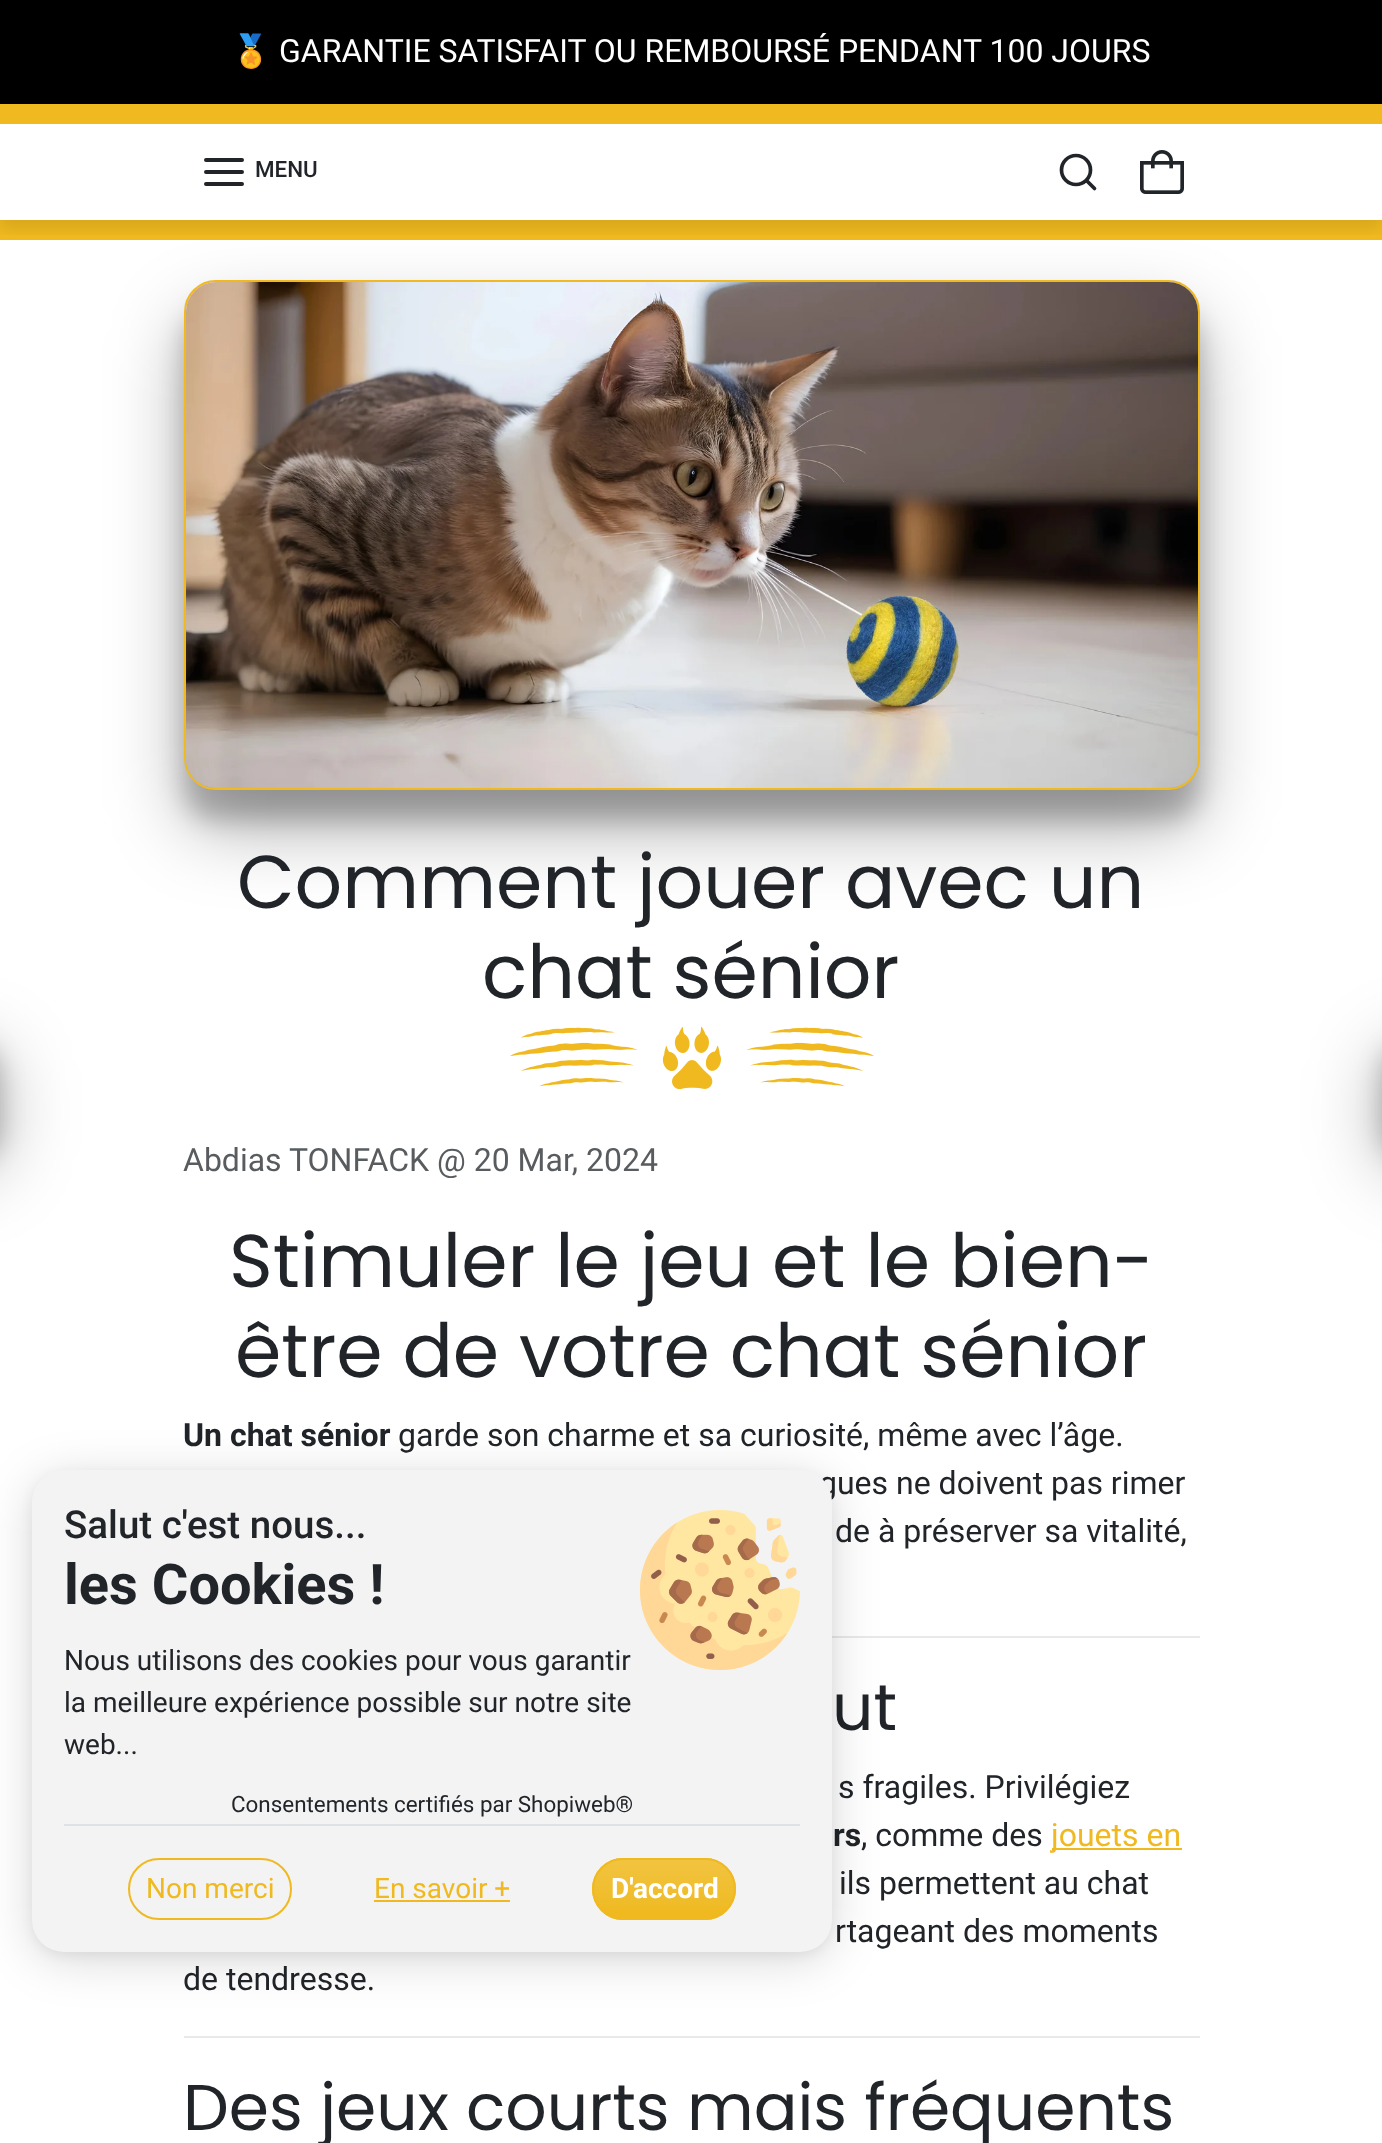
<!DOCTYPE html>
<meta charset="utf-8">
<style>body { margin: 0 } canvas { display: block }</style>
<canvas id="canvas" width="1382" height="2143"></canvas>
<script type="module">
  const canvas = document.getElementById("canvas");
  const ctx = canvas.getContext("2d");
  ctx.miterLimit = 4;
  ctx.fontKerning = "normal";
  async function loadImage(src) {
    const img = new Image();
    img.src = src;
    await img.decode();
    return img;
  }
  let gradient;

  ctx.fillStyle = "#ffffff";
  ctx.fillRect(0, 0, 1382, 2143);
  ctx.fillStyle = "#000000";
  ctx.fillRect(0, 0, 1382, 104);
  ctx.font = "32px Noto Color Emoji";
  ctx.fillStyle = "#ffffff";
  ctx.fillText("🏅", 231, 62);
  ctx.font = "32px Roboto";
  ctx.fillText("GARANTIE SATISFAIT OU REMBOURSÉ PENDANT 100 JOURS", 279, 62);
  ctx.fillStyle = "#efb91f";
  ctx.fillRect(0, 104, 1382, 20);
  ctx.fillStyle = "rgba(0, 0, 0, 0.3)";
  ctx.filter = "blur(38px)";
  ctx.beginPath();
  ctx.roundRect(184, 318, 1016, 510, 32);
  ctx.fill();
  ctx.filter = "none";
  ctx.fillStyle = "#efb91f";
  ctx.fillRect(0, 220, 1382, 20);
  ctx.save();
  ctx.beginPath();
  ctx.rect(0, 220, 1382, 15);
  ctx.clip();
  ctx.fillStyle = "rgba(0, 0, 0, 0.1)";
  ctx.filter = "blur(8px)";
  ctx.beginPath();
  ctx.rect(0, 132, 1382, 96);
  ctx.fill();
  ctx.filter = "none";
  ctx.restore();
  ctx.beginPath();
  ctx.moveTo(206, 172);
  ctx.lineTo(242, 172);
  ctx.moveTo(206, 160);
  ctx.lineTo(242, 160);
  ctx.moveTo(206, 184);
  ctx.lineTo(242, 184);
  ctx.strokeStyle = "#212529";
  ctx.lineWidth = 4;
  ctx.lineCap = "round";
  ctx.lineJoin = "round";
  ctx.stroke();
  ctx.font = "500 22.4px Roboto";
  ctx.fillStyle = "#212529";
  ctx.fillText("MENU", 255, 177);
  ctx.beginPath();
  ctx.arc(1076, 170, 14.5, 0, Math.PI * 2);
  ctx.lineWidth = 3.7;
  ctx.stroke();
  ctx.beginPath();
  ctx.moveTo(1094.5, 188.5);
  ctx.lineTo(1086.5, 180.5);
  ctx.stroke();
  ctx.drawImage(await loadImage("img1.png"), 1140, 150, 44, 44);
  ctx.fillStyle = "rgba(0, 0, 0, 0.22)";
  ctx.filter = "blur(12px)";
  ctx.beginPath();
  ctx.roundRect(184, 310, 1016, 510, 32);
  ctx.fill();
  ctx.filter = "none";
  ctx.beginPath();
  ctx.roundRect(185, 281, 1014, 508, 31);
  ctx.strokeStyle = "#efb91f";
  ctx.lineWidth = 2;
  ctx.lineJoin = "miter";
  ctx.stroke();
  ctx.drawImage(await loadImage("img2.png"), 186, 282, 1012, 506);
  ctx.font = "74.6px Poppins";
  ctx.fillStyle = "#212529";
  ctx.fillText("Comment jouer avec un", 237, 908);
  ctx.fillText("chat sénior", 482, 998);
  ctx.drawImage(await loadImage("img3.png"), 510, 1026, 364, 64);
  ctx.font = "32px Roboto";
  ctx.fillStyle = "#595c5f";
  ctx.fillText("Abdias TONFACK @ 20 Mar, 2024", 183, 1171);
  ctx.font = "74.6px Poppins";
  ctx.fillStyle = "#212529";
  ctx.fillText("Stimuler le jeu et le bien-", 229, 1287);
  ctx.fillText("être de votre chat sénior", 235, 1377);
  ctx.font = "bold 32px Roboto";
  ctx.fillText("Un chat sénior", 183, 1446);
  ctx.font = "32px Roboto";
  ctx.fillText("garde son charme et sa curiosité, même avec l’âge.", 398, 1446);
  ctx.fillText("gues ne doivent pas rimer", 819, 1494);
  ctx.fillText("de à préserver sa vitalité,", 835, 1542);
  ctx.fillStyle = "#e9e9ea";
  ctx.fillRect(832, 1636, 368, 2);
  ctx.font = "64.75px Poppins";
  ctx.fillStyle = "#212529";
  ctx.fillText("ut", 832, 1730);
  ctx.font = "32px Roboto";
  ctx.fillText("s fragiles. Privilégiez", 838, 1798);
  ctx.font = "bold 32px Roboto";
  ctx.fillText("rs", 833, 1846);
  ctx.font = "32px Roboto";
  ctx.fillText(", comme des", 861, 1846);
  ctx.fillStyle = "#efb91f";
  ctx.fillRect(1052, 1848, 130, 2);
  ctx.fillText("jouets en", 1051, 1846);
  ctx.fillStyle = "#212529";
  ctx.fillText("ils permettent au chat", 839, 1894);
  ctx.fillText("rtageant des moments", 835, 1942);
  ctx.fillText("de tendresse.", 183, 1990);
  ctx.fillStyle = "#e9e9ea";
  ctx.fillRect(184, 2036, 1016, 2);
  ctx.font = "64.75px Poppins";
  ctx.fillStyle = "#212529";
  ctx.fillText("Des jeux courts mais fréquents", 183, 2130);
  ctx.fillStyle = "rgba(0, 0, 0, 0.3)";
  ctx.filter = "blur(38px)";
  ctx.beginPath();
  ctx.roundRect(-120, 1050, 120, 120, 32);
  ctx.fill();
  ctx.filter = "none";
  ctx.fillStyle = "rgba(0, 0, 0, 0.22)";
  ctx.filter = "blur(12px)";
  ctx.beginPath();
  ctx.roundRect(-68, 1042, 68, 120, 32);
  ctx.fill();
  ctx.filter = "none";
  ctx.fillStyle = "rgba(0, 0, 0, 0.3)";
  ctx.filter = "blur(38px)";
  ctx.beginPath();
  ctx.roundRect(1382, 1050, 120, 120, 32);
  ctx.fill();
  ctx.filter = "none";
  ctx.fillStyle = "rgba(0, 0, 0, 0.22)";
  ctx.filter = "blur(12px)";
  ctx.beginPath();
  ctx.roundRect(1382, 1042, 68, 120, 32);
  ctx.fill();
  ctx.filter = "none";
  ctx.fillStyle = "rgba(0, 0, 0, 0.05)";
  ctx.filter = "blur(6px)";
  ctx.beginPath();
  ctx.roundRect(32, 1474, 800, 482, 32);
  ctx.fill();
  ctx.filter = "none";
  ctx.fillStyle = "rgba(0, 0, 0, 0.15)";
  ctx.filter = "blur(24px)";
  ctx.beginPath();
  ctx.roundRect(32, 1478, 800, 482, 32);
  ctx.fill();
  ctx.filter = "none";
  ctx.fillStyle = "#f3f3f3";
  ctx.beginPath();
  ctx.roundRect(32, 1470, 800, 482, 32);
  ctx.fill();
  ctx.font = "500 38.5px Roboto";
  ctx.fillStyle = "#212529";
  ctx.fillText("Salut c'est nous...", 64, 1538);
  ctx.font = "bold 56px Roboto";
  ctx.fillText("les Cookies !", 64, 1604);
  ctx.drawImage(await loadImage("img4.png"), 640, 1510, 160, 160);
  ctx.font = "28px Roboto";
  ctx.fillText("Nous utilisons des cookies pour vous garantir", 64, 1670);
  ctx.fillText("la meilleure expérience possible sur notre site", 64, 1712);
  ctx.fillText("web...", 64, 1754);
  ctx.fillStyle = "#dee2e6";
  ctx.fillRect(64, 1824, 736, 2);
  ctx.font = "22.4px Roboto";
  ctx.fillStyle = "#212529";
  ctx.fillText("Consentements certifiés par Shopiweb®", 231, 1812);
  ctx.beginPath();
  ctx.roundRect(129, 1859, 162, 60, 30);
  ctx.stroke();
  ctx.font = "28px Roboto";
  ctx.fillStyle = "#efb91f";
  ctx.fillText("Non merci", 146, 1898);
  ctx.fillText("En savoir +", 374, 1898);
  ctx.fillRect(374, 1900, 136, 2);
  ctx.beginPath();
  ctx.roundRect(592, 1858, 144, 62, 31);
  ctx.fill();
  ctx.save();
  ctx.beginPath();
  ctx.roundRect(592, 1858, 144, 62, 31);
  ctx.clip();
  gradient = ctx.createLinearGradient(664, 1860, 664, 1918);
  gradient.addColorStop(0, "rgba(255, 255, 255, 0.15)");
  gradient.addColorStop(1, "rgba(255, 255, 255, 0)");
  ctx.fillStyle = gradient;
  ctx.fillRect(592, 1860, 144, 50);
  ctx.restore();
  ctx.beginPath();
  ctx.roundRect(593, 1859, 142, 60, 30);
  ctx.stroke();
  ctx.font = "bold 28px Roboto";
  ctx.fillStyle = "#ffffff";
  ctx.fillText("D'accord", 611, 1898);
</script>
